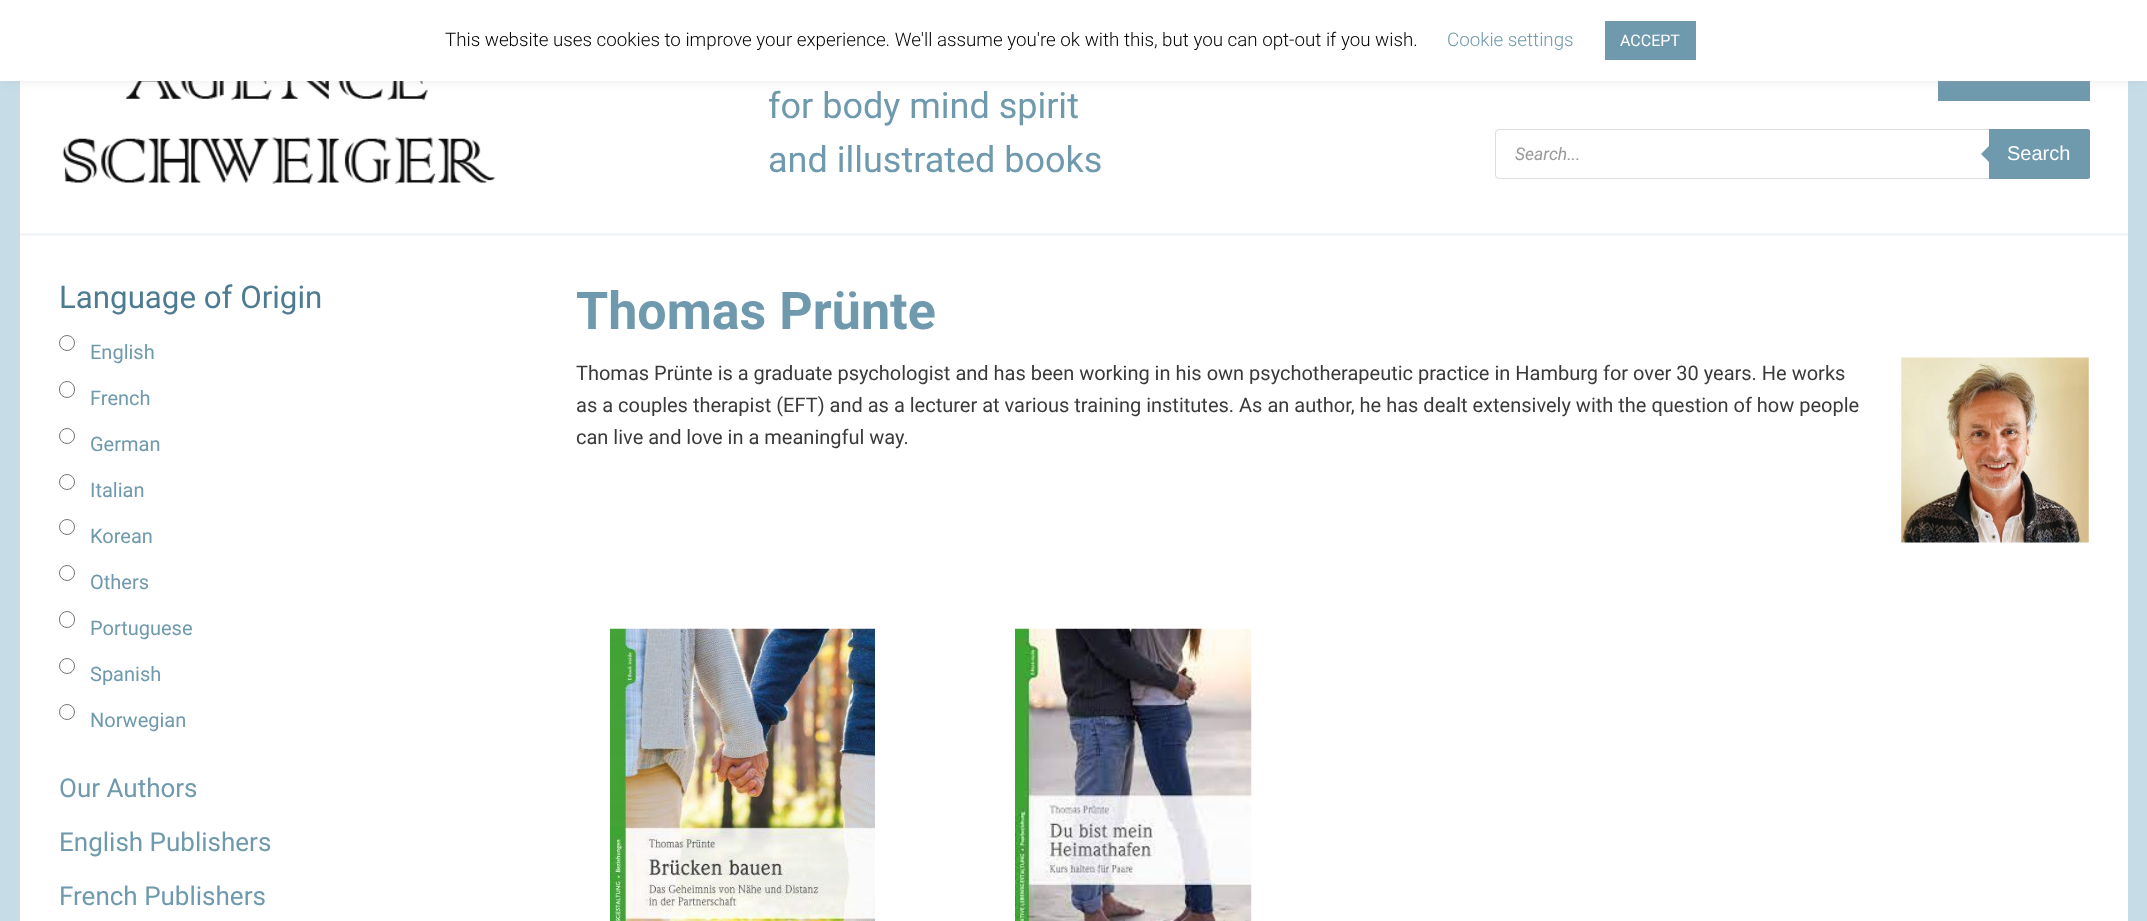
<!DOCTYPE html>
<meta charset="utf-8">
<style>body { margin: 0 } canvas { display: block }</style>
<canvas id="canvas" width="2147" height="921"></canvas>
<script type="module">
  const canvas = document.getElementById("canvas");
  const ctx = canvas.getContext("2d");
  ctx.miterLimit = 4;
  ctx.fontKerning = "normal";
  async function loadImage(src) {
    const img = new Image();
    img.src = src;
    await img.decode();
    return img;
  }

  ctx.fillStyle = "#c6dde8";
  ctx.fillRect(0, 0, 2147, 921);
  ctx.fillStyle = "#ffffff";
  ctx.fillRect(20, 81, 2108, 152);
  ctx.drawImage(await loadImage("img1.png"), 62, 81, 434, 103);
  ctx.fillStyle = "#6f99ad";
  ctx.fillRect(1938, 81, 152, 20);
  ctx.fillStyle = "rgba(172, 171, 171, 0.3)";
  ctx.filter = "blur(6px)";
  ctx.beginPath();
  ctx.rect(0, -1, 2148, 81);
  ctx.fill();
  ctx.filter = "none";
  ctx.fillStyle = "#ffffff";
  ctx.fillRect(0, 0, 2147, 81);
  ctx.font = "300 18.75px Roboto";
  ctx.fillStyle = "#000000";
  ctx.fillText("This website uses cookies to improve your experience. We'll assume you're ok with this, but you can opt-out if you wish.", 445, 46);
  ctx.fillStyle = "#6f99ad";
  ctx.fillText("Cookie settings", 1447, 46);
  ctx.fillRect(1605, 21, 91, 39);
  ctx.font = "16px Roboto";
  ctx.fillStyle = "#ffffff";
  ctx.fillText("ACCEPT", 1620, 46);
  ctx.fillStyle = "#f1f5f7";
  ctx.fillRect(20, 233, 2108, 3);
  ctx.font = "36px Roboto";
  ctx.fillStyle = "#6f99ad";
  ctx.fillText("for body mind spirit", 768, 118);
  ctx.fillText("and illustrated books", 768, 172);
  ctx.beginPath();
  ctx.roundRect(1495.5, 129.5, 594, 49, 3.5);
  ctx.strokeStyle = "#dddddd";
  ctx.stroke();
  ctx.font = "italic 17.5px Roboto";
  ctx.fillStyle = "#999999";
  ctx.fillText("Search...", 1515, 160);
  ctx.fillStyle = "#6f99ad";
  ctx.beginPath();
  ctx.roundRect(1989, 129, 101, 50, [0, 2.5, 2.5, 0]);
  ctx.fill();
  ctx.beginPath();
  ctx.moveTo(1991, 144);
  ctx.lineTo(1991, 164);
  ctx.lineTo(1981, 154);
  ctx.closePath();
  ctx.fill();
  ctx.font = "20px Liberation Sans";
  ctx.fillStyle = "#ffffff";
  ctx.fillText("Search", 2007, 160);
  ctx.fillRect(20, 236, 2108, 685);
  ctx.font = "31.25px Roboto";
  ctx.fillStyle = "#4d7c92";
  ctx.fillText("Language of Origin", 59, 308);
  ctx.beginPath();
  ctx.arc(67, 343, 7.5, 0, Math.PI * 2);
  ctx.strokeStyle = "#767676";
  ctx.stroke();
  ctx.font = "20px Roboto";
  ctx.fillStyle = "#6f99ad";
  ctx.fillText("English", 90, 359);
  ctx.beginPath();
  ctx.roundRect(59.5, 381.5, 15, 16, 7.5);
  ctx.stroke();
  ctx.fillText("French", 90, 405);
  ctx.beginPath();
  ctx.arc(67, 436, 7.5, 0, Math.PI * 2);
  ctx.stroke();
  ctx.fillText("German", 90, 451);
  ctx.beginPath();
  ctx.arc(67, 482, 7.5, 0, Math.PI * 2);
  ctx.stroke();
  ctx.fillText("Italian", 90, 497);
  ctx.beginPath();
  ctx.arc(67, 527, 7.5, 0, Math.PI * 2);
  ctx.stroke();
  ctx.fillText("Korean", 90, 543);
  ctx.beginPath();
  ctx.arc(67, 573, 7.5, 0, Math.PI * 2);
  ctx.stroke();
  ctx.fillText("Others", 90, 589);
  ctx.beginPath();
  ctx.roundRect(59.5, 611.5, 15, 16, 7.5);
  ctx.stroke();
  ctx.fillText("Portuguese", 90, 635);
  ctx.beginPath();
  ctx.arc(67, 666, 7.5, 0, Math.PI * 2);
  ctx.stroke();
  ctx.fillText("Spanish", 90, 681);
  ctx.beginPath();
  ctx.arc(67, 712, 7.5, 0, Math.PI * 2);
  ctx.stroke();
  ctx.fillText("Norwegian", 90, 727);
  ctx.font = "26px Roboto";
  ctx.fillText("Our Authors", 59, 797);
  ctx.fillText("English Publishers", 59, 851);
  ctx.fillText("French Publishers", 59, 905);
  ctx.font = "bold 52px Roboto";
  ctx.fillText("Thomas Prünte", 576, 329);
  ctx.font = "20px Roboto";
  ctx.fillStyle = "#3a3a3a";
  ctx.fillText("Thomas Prünte is a graduate psychologist and has been working in his own psychotherapeutic practice in Hamburg for over 30 years. He works", 576, 380);
  ctx.fillText("as a couples therapist (EFT) and as a lecturer at various training institutes. As an author, he has dealt extensively with the question of how people", 576, 412);
  ctx.fillText("can live and love in a meaningful way.", 576, 444);
  ctx.drawImage(await loadImage("img2.png"), 1901, 357, 188, 186);
  ctx.drawImage(await loadImage("img3.png"), 610, 628, 265, 293);
  ctx.drawImage(await loadImage("img4.png"), 1015, 628, 237, 293);
</script>
